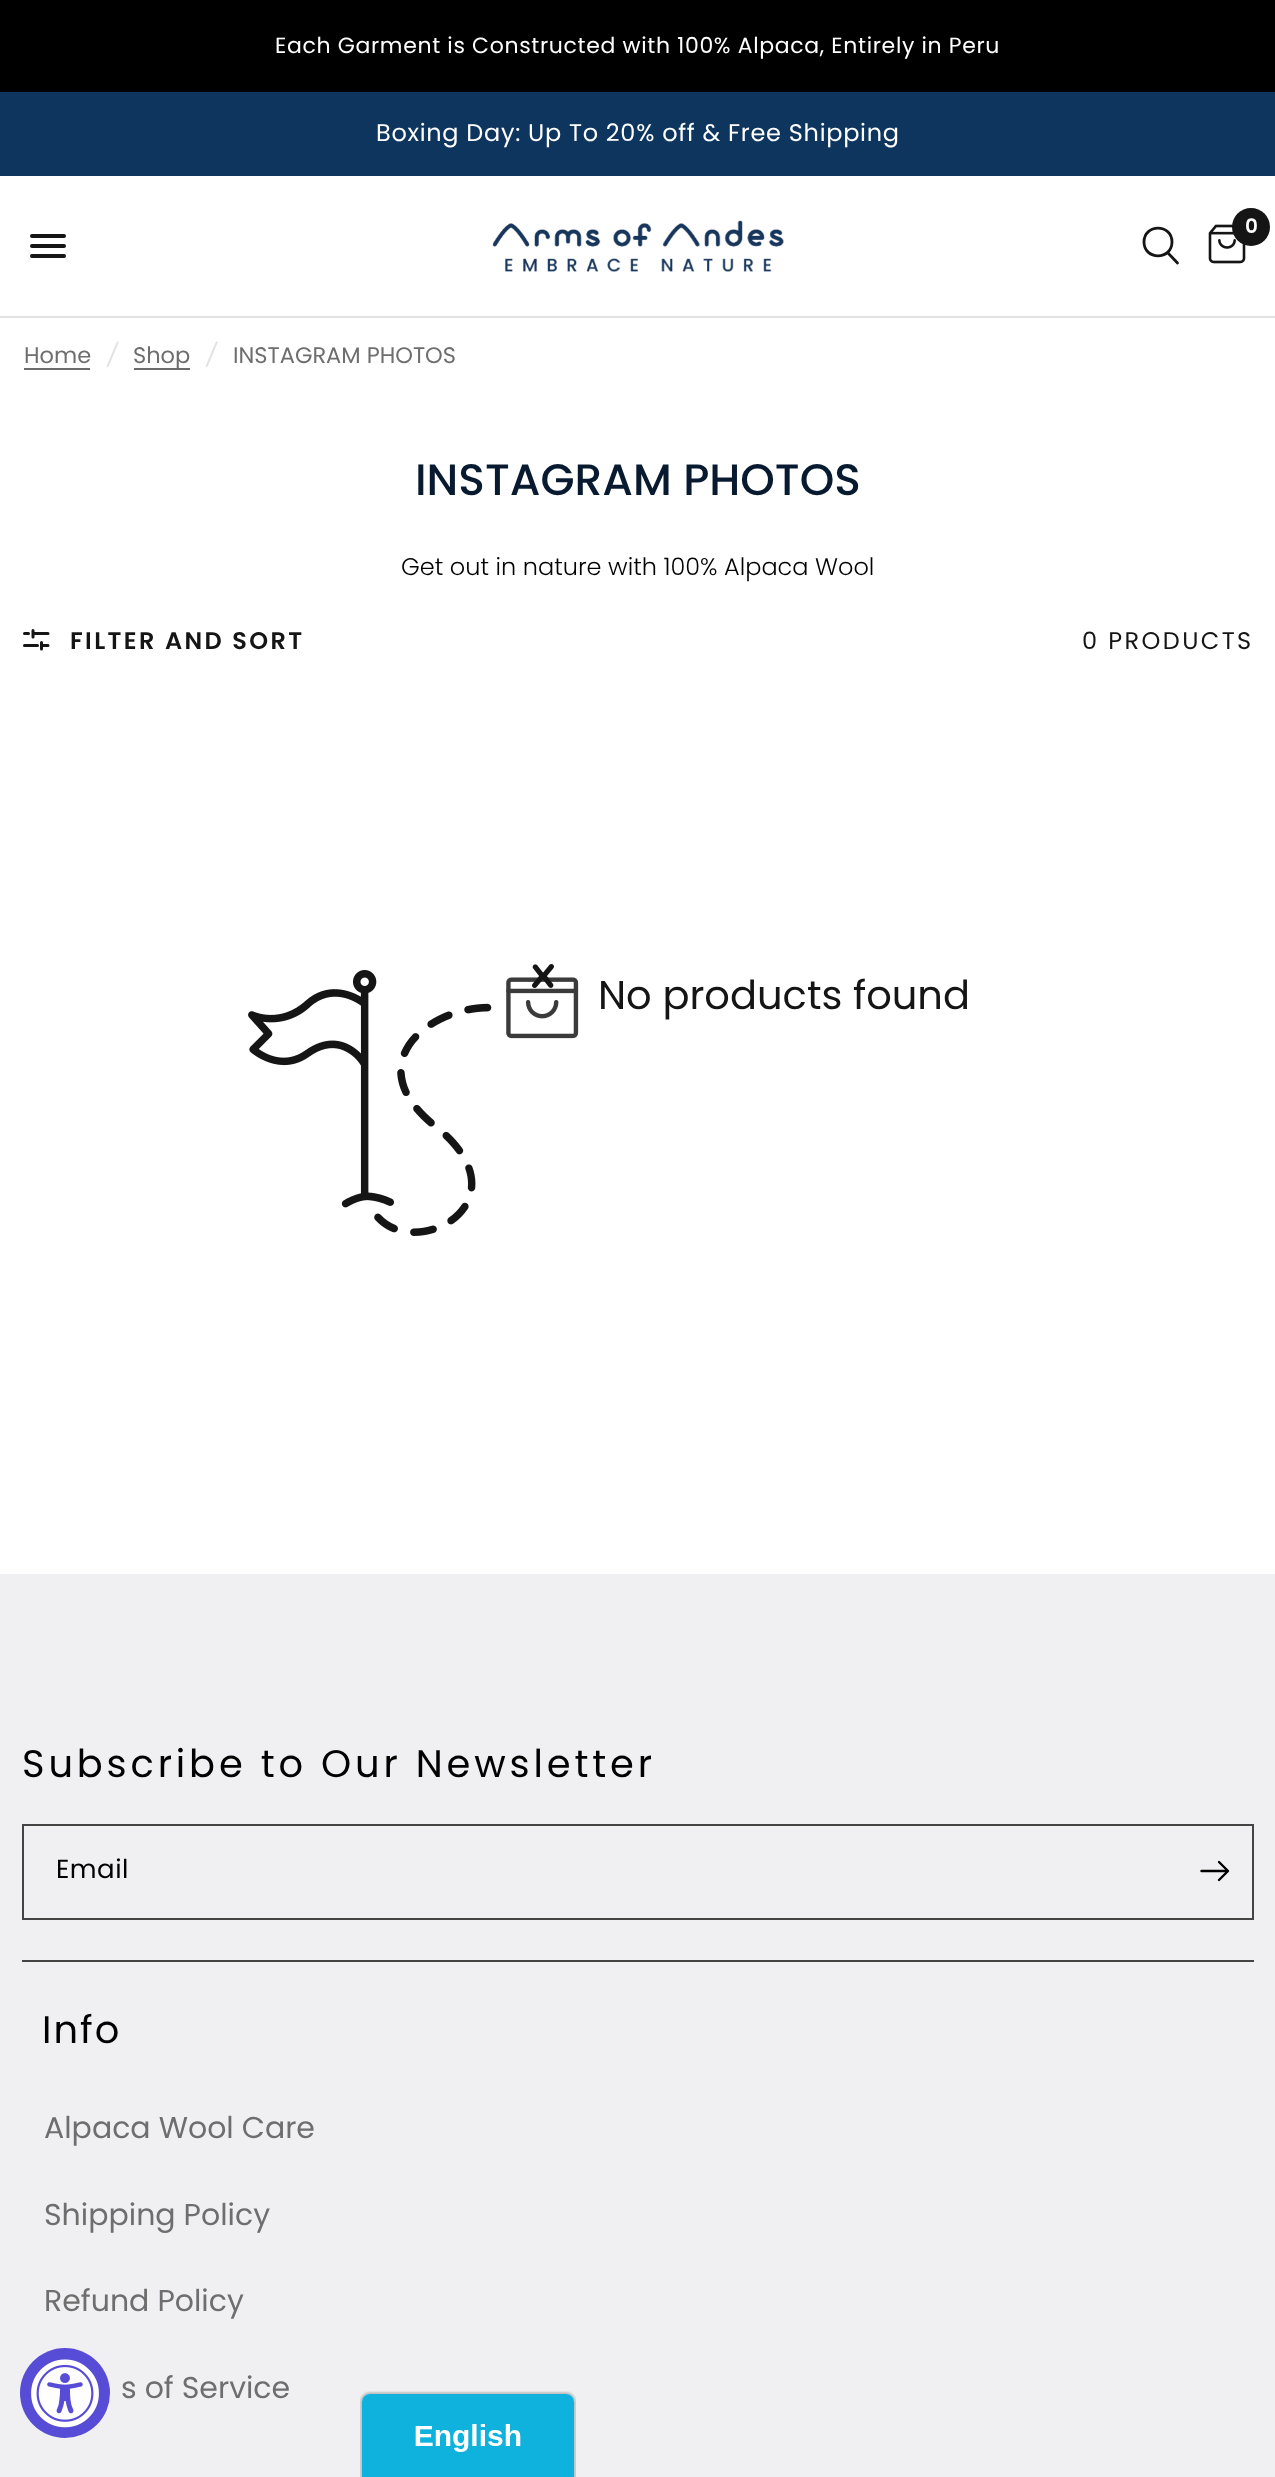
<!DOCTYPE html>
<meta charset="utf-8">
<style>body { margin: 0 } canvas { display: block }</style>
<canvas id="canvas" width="1275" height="2477"></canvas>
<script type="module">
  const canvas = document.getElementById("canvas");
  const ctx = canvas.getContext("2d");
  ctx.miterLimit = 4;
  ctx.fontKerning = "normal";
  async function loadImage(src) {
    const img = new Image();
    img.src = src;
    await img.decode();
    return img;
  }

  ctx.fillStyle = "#ffffff";
  ctx.fillRect(0, 0, 1275, 2477);
  ctx.fillStyle = "#000000";
  ctx.fillRect(0, 0, 1275, 92);
  ctx.letterSpacing = "0.65px";
  ctx.font = "22px Poppins";
  ctx.fillStyle = "#ffffff";
  ctx.fillText("Each Garment is Constructed with 100% Alpaca, Entirely in Peru", 275, 53);
  ctx.fillStyle = "#0e355e";
  ctx.fillRect(0, 92, 1275, 84);
  ctx.letterSpacing = "0.7px";
  ctx.font = "24px Poppins";
  ctx.fillStyle = "#ffffff";
  ctx.fillText("Boxing Day: Up To 20% off & Free Shipping", 376, 141);
  ctx.fillStyle = "#e2e2e2";
  ctx.fillRect(0, 316, 1275, 2);
  ctx.fillStyle = "#151515";
  ctx.beginPath();
  ctx.roundRect(30, 234, 36, 4, 2);
  ctx.fill();
  ctx.beginPath();
  ctx.roundRect(30, 244, 36, 4, 2);
  ctx.fill();
  ctx.beginPath();
  ctx.roundRect(30, 254, 36, 4, 2);
  ctx.fill();
  ctx.drawImage(await loadImage("img1.png"), 492, 220, 292, 52);
  ctx.beginPath();
  ctx.moveTo(1168, 253);
  ctx.lineTo(1177.5, 263);
  ctx.moveTo(1172, 242);
  ctx.bezierCurveTo(1172, 260.5, 1144, 260.5, 1144, 242);
  ctx.bezierCurveTo(1144, 223.5, 1172, 223.5, 1172, 242);
  ctx.closePath();
  ctx.strokeStyle = "#151515";
  ctx.lineWidth = 2.8;
  ctx.lineCap = "round";
  ctx.lineJoin = "round";
  ctx.stroke();
  ctx.drawImage(await loadImage("img2.png"), 1208, 224, 38, 40);
  ctx.beginPath();
  ctx.arc(1251, 227, 19, 0, Math.PI * 2);
  ctx.fill();
  ctx.letterSpacing = "0px";
  ctx.font = "600 20px Poppins";
  ctx.fillStyle = "#ffffff";
  ctx.fillText("0", 1245, 233);
  ctx.font = "22.5px Poppins";
  ctx.fillStyle = "#6e6e6e";
  ctx.fillText("Home", 24, 363);
  ctx.fillStyle = "#6c6c6c";
  ctx.fillRect(24, 368, 66, 2);
  ctx.font = "italic 22.5px Poppins";
  ctx.fillStyle = "#e2e2e2";
  ctx.fillText("/", 107, 363);
  ctx.fillStyle = "#6c6c6c";
  ctx.fillRect(134, 368, 56, 2);
  ctx.font = "22.5px Poppins";
  ctx.fillStyle = "#6e6e6e";
  ctx.fillText("Shop", 133, 363);
  ctx.font = "italic 22.5px Poppins";
  ctx.fillStyle = "#e2e2e2";
  ctx.fillText("/", 206, 363);
  ctx.font = "22.5px Poppins";
  ctx.fillStyle = "#6e6e6e";
  ctx.fillText("INSTAGRAM PHOTOS", 233, 363);
  ctx.font = "500 44px Poppins";
  ctx.fillStyle = "#081a30";
  ctx.fillText("INSTAGRAM PHOTOS", 415, 495);
  ctx.font = "300 24px Poppins";
  ctx.fillStyle = "#000000";
  ctx.fillText("Get out in nature with 100% Alpaca Wool", 401, 575);
  ctx.beginPath();
  ctx.moveTo(37.5, 645.5);
  ctx.lineTo(24.5, 645.5);
  ctx.moveTo(48, 645.5);
  ctx.lineTo(41.5, 645.5);
  ctx.moveTo(28.5, 633.5);
  ctx.lineTo(24.5, 633.5);
  ctx.moveTo(48, 633.5);
  ctx.lineTo(33, 633.5);
  ctx.moveTo(33, 630.5);
  ctx.lineTo(33, 637);
  ctx.moveTo(41.5, 649);
  ctx.lineTo(41.5, 642.5);
  ctx.lineWidth = 3;
  ctx.stroke();
  ctx.letterSpacing = "2.4px";
  ctx.font = "600 24px Poppins";
  ctx.fillStyle = "#151515";
  ctx.fillText("FILTER AND SORT", 70, 649);
  ctx.font = "24px Poppins";
  ctx.fillText("0 PRODUCTS", 1082, 649);
  ctx.drawImage(await loadImage("img3.png"), 248, 964, 331, 272);
  ctx.letterSpacing = "0px";
  ctx.font = "40px Poppins";
  ctx.fillText("No products found", 598, 1009);
  ctx.fillStyle = "#f0f0f2";
  ctx.fillRect(0, 1574, 1275, 903);
  ctx.letterSpacing = "3.85px";
  ctx.font = "38.4px Poppins";
  ctx.fillStyle = "#000000";
  ctx.fillText("Subscribe to Our Newsletter", 22, 1777);
  ctx.strokeStyle = "#444444";
  ctx.lineWidth = 2;
  ctx.lineJoin = "miter";
  ctx.strokeRect(23, 1825, 1230, 94);
  ctx.letterSpacing = "0.5px";
  ctx.font = "26px Poppins";
  ctx.fillText("Email", 56, 1878);
  ctx.beginPath();
  ctx.moveTo(1201.5, 1871);
  ctx.lineTo(1225.5, 1871);
  ctx.moveTo(1219, 1862);
  ctx.lineTo(1228, 1871);
  ctx.lineTo(1219, 1880);
  ctx.strokeStyle = "#000000";
  ctx.lineWidth = 2.4;
  ctx.lineJoin = "round";
  ctx.stroke();
  ctx.fillStyle = "#444444";
  ctx.fillRect(22, 1960, 1232, 2);
  ctx.letterSpacing = "2px";
  ctx.font = "38.4px Poppins";
  ctx.fillStyle = "#000000";
  ctx.fillText("Info", 42, 2043);
  ctx.letterSpacing = "0px";
  ctx.font = "30px Poppins";
  ctx.fillStyle = "#6e6e6e";
  ctx.fillText("Alpaca Wool Care", 44, 2138);
  ctx.fillText("Shipping Policy", 44, 2225);
  ctx.fillText("Refund Policy", 44, 2311);
  ctx.fillText("s of Service", 121, 2398);
  ctx.fillStyle = "#574cd5";
  ctx.beginPath();
  ctx.arc(65, 2393, 45, 0, Math.PI * 2);
  ctx.fill();
  ctx.drawImage(await loadImage("img4.png"), 31, 2359, 68, 69);
  ctx.drawImage(await loadImage("img5.png"), 360, 2391, 216, 86);
</script>
